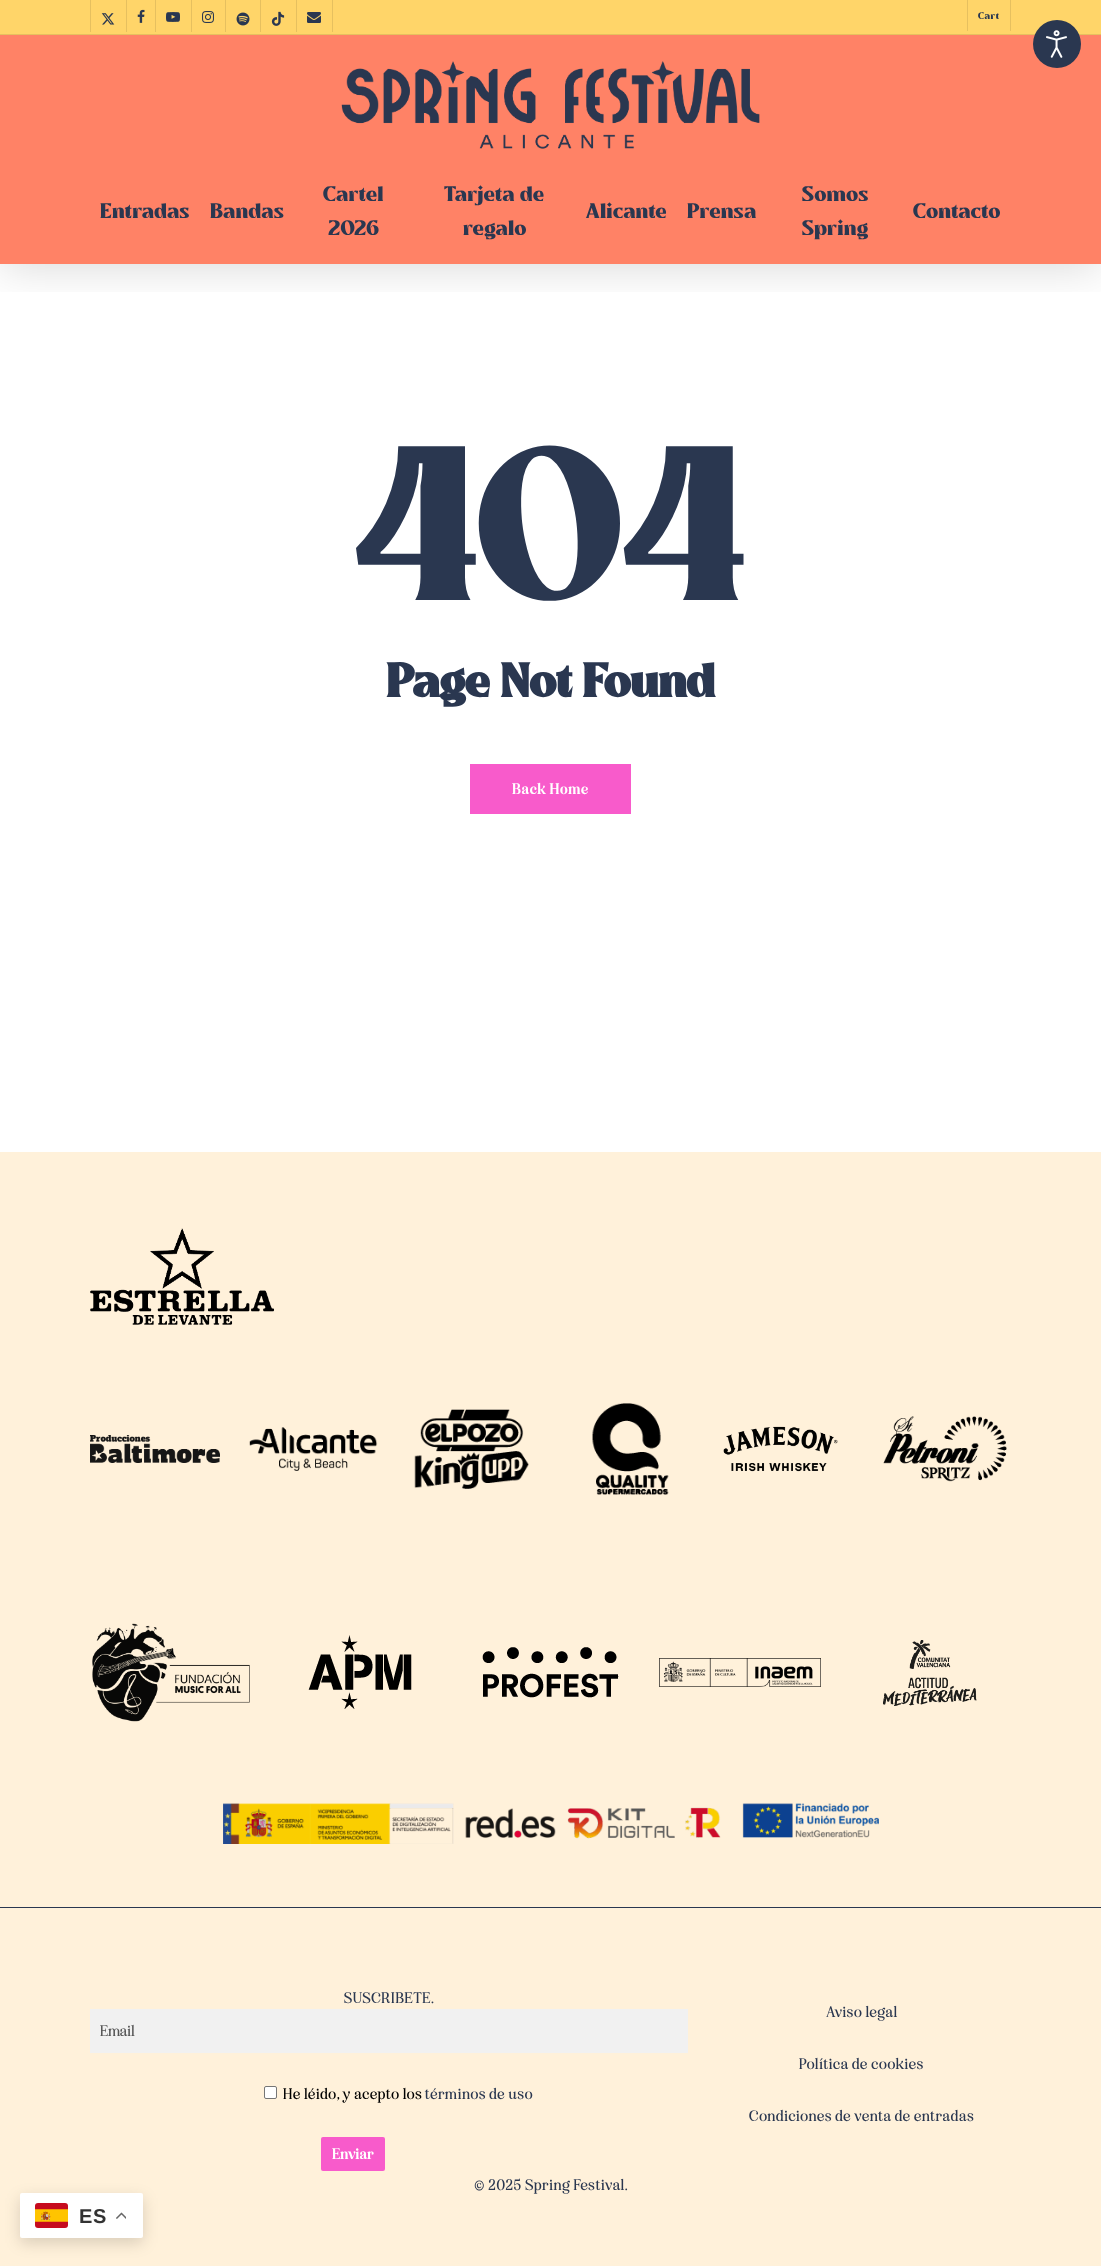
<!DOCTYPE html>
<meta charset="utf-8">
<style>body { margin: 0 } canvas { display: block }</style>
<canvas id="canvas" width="1101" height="2266"></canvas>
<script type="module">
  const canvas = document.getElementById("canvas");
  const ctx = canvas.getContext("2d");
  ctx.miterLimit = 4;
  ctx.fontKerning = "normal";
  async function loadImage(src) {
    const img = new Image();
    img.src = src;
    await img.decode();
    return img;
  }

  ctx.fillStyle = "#ffffff";
  ctx.fillRect(0, 0, 1101, 2266);
  ctx.fillStyle = "#ff8266";
  ctx.fillRect(0, 35, 1101, 229);
  ctx.save();
  ctx.beginPath();
  ctx.rect(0, 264, 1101, 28);
  ctx.clip();
  ctx.fillStyle = "rgba(0, 0, 0, 0.15)";
  ctx.filter = "blur(22.5px)";
  ctx.beginPath();
  ctx.rect(0, 3, 1101, 264);
  ctx.fill();
  ctx.filter = "none";
  ctx.restore();
  ctx.fillStyle = "#ffd569";
  ctx.fillRect(0, 0, 1101, 34);
  ctx.fillStyle = "#e6c05f";
  ctx.fillRect(0, 34, 1101, 1);
  ctx.fillRect(90, 0, 1, 32);
  ctx.drawImage(await loadImage("img1.png"), 101, 13, 14, 12);
  ctx.fillRect(126, 0, 1, 32);
  ctx.drawImage(await loadImage("img2.png"), 137, 9, 8, 14);
  ctx.fillRect(155, 0, 1, 32);
  ctx.drawImage(await loadImage("img3.png"), 166, 12, 14, 10);
  ctx.fillRect(191, 0, 1, 32);
  ctx.drawImage(await loadImage("img4.png"), 202, 11, 12, 12);
  ctx.fillRect(225, 0, 1, 32);
  ctx.drawImage(await loadImage("img5.png"), 236, 12, 14, 14);
  ctx.fillRect(260, 0, 1, 32);
  ctx.drawImage(await loadImage("img6.png"), 271, 11, 14, 15);
  ctx.fillRect(332, 0, 1, 32);
  ctx.fillRect(296, 0, 1, 32);
  ctx.drawImage(await loadImage("img7.png"), 307, 12, 14, 11);
  ctx.fillRect(1010, 0, 1, 31);
  ctx.fillRect(967, 0, 1, 31);
  ctx.letterSpacing = "0.7px";
  ctx.font = "11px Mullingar";
  ctx.fillStyle = "#2a3750";
  ctx.fillText("Cart", 978, 19);
  ctx.drawImage(await loadImage("img8.png"), 341, 61, 419, 88);
  ctx.letterSpacing = "0.5px";
  ctx.font = "24px Mullingar";
  ctx.fillText("Entradas", 100, 218);
  ctx.fillText("Bandas", 210, 218);
  ctx.fillText("Cartel", 323, 201);
  ctx.fillText("2026", 328, 235);
  ctx.fillText("Tarjeta de", 444, 201);
  ctx.fillText("regalo", 463, 235);
  ctx.fillText("Alicante", 586, 218);
  ctx.fillText("Prensa", 687, 218);
  ctx.fillText("Somos", 802, 201);
  ctx.fillText("Spring", 802, 235);
  ctx.fillText("Contacto", 913, 218);
  ctx.beginPath();
  ctx.arc(1057, 44, 24, 0, Math.PI * 2);
  ctx.fill();
  ctx.drawImage(await loadImage("img9.png"), 1046, 30, 21, 28);
  ctx.letterSpacing = "0px";
  ctx.font = "250px Mullingar";
  ctx.fillText("404", 356, 600);
  ctx.font = "bold 54px Mullingar";
  ctx.fillText("Page Not Found", 386, 697);
  ctx.fillStyle = "#f85bcb";
  ctx.fillRect(470, 764, 161, 50);
  ctx.letterSpacing = "0.7px";
  ctx.font = "bold 14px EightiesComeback";
  ctx.fillStyle = "#ffffff";
  ctx.fillText("Back Home", 512, 794);
  ctx.fillStyle = "#fff1da";
  ctx.fillRect(0, 1152, 1101, 1114);
  ctx.drawImage(await loadImage("img10.png"), 90, 1228, 184, 97);
  ctx.drawImage(await loadImage("img11.png"), 90, 1435, 130, 28);
  ctx.drawImage(await loadImage("img12.png"), 249, 1427, 129, 44);
  ctx.drawImage(await loadImage("img13.png"), 414, 1409, 115, 80);
  ctx.drawImage(await loadImage("img14.png"), 592, 1403, 77, 92);
  ctx.drawImage(await loadImage("img15.png"), 723, 1426, 115, 46);
  ctx.drawImage(await loadImage("img16.png"), 883, 1416, 124, 66);
  ctx.drawImage(await loadImage("img17.png"), 92, 1623, 158, 99);
  ctx.drawImage(await loadImage("img18.png"), 308, 1635, 104, 74);
  ctx.drawImage(await loadImage("img19.png"), 482, 1647, 137, 51);
  ctx.drawImage(await loadImage("img20.png"), 659, 1658, 162, 29);
  ctx.drawImage(await loadImage("img21.png"), 883, 1640, 94, 66);
  ctx.drawImage(await loadImage("img22.png"), 223, 1803, 656, 41);
  ctx.fillStyle = "#2a3750";
  ctx.fillRect(0, 1907, 1101, 1);
  ctx.font = "500 14px EightiesComeback";
  ctx.fillText("SUSCRIBETE.", 344, 2003);
  ctx.fillStyle = "#f1f1f1";
  ctx.fillRect(90, 2009, 598, 44);
  ctx.letterSpacing = "0px";
  ctx.fillStyle = "#555555";
  ctx.fillText("Email", 100, 2036);
  ctx.fillStyle = "#ffffff";
  ctx.beginPath();
  ctx.roundRect(264.5, 2086.5, 12, 12, 1.5);
  ctx.fill();
  ctx.strokeStyle = "#767676";
  ctx.stroke();
  ctx.letterSpacing = "0.7px";
  ctx.fillStyle = "#000000";
  ctx.fillText("He léido, y acepto los", 283, 2099);
  ctx.fillStyle = "#2a3750";
  ctx.fillText("términos de uso", 425, 2099);
  ctx.fillStyle = "#f85bcb";
  ctx.beginPath();
  ctx.roundRect(321, 2137, 64, 34, 2);
  ctx.fill();
  ctx.letterSpacing = "0px";
  ctx.font = "bold 14px EightiesComeback";
  ctx.fillStyle = "#ffffff";
  ctx.fillText("Enviar", 332, 2159);
  ctx.letterSpacing = "0.7px";
  ctx.font = "500 14px EightiesComeback";
  ctx.fillStyle = "#2a3750";
  ctx.fillText("Aviso legal", 826, 2017);
  ctx.fillText("Política de cookies", 799, 2069);
  ctx.fillText("Condiciones de venta de entradas", 749, 2121);
  ctx.fillText("© 2025 Spring Festival.", 474, 2190);
  ctx.fillStyle = "rgba(0, 0, 0, 0.15)";
  ctx.filter = "blur(7.5px)";
  ctx.beginPath();
  ctx.roundRect(20, 2198, 123, 45, 2);
  ctx.fill();
  ctx.filter = "none";
  ctx.fillStyle = "#ffffff";
  ctx.beginPath();
  ctx.roundRect(20, 2193, 123, 45, 2);
  ctx.fill();
  ctx.drawImage(await loadImage("img23.png"), 35, 2203, 33, 25);
  ctx.font = "bold 20px Liberation Sans";
  ctx.fillStyle = "#333333";
  ctx.fillText("ES", 79, 2223);
  ctx.drawImage(await loadImage("img24.png"), 116, 2212, 10, 7);
</script>
